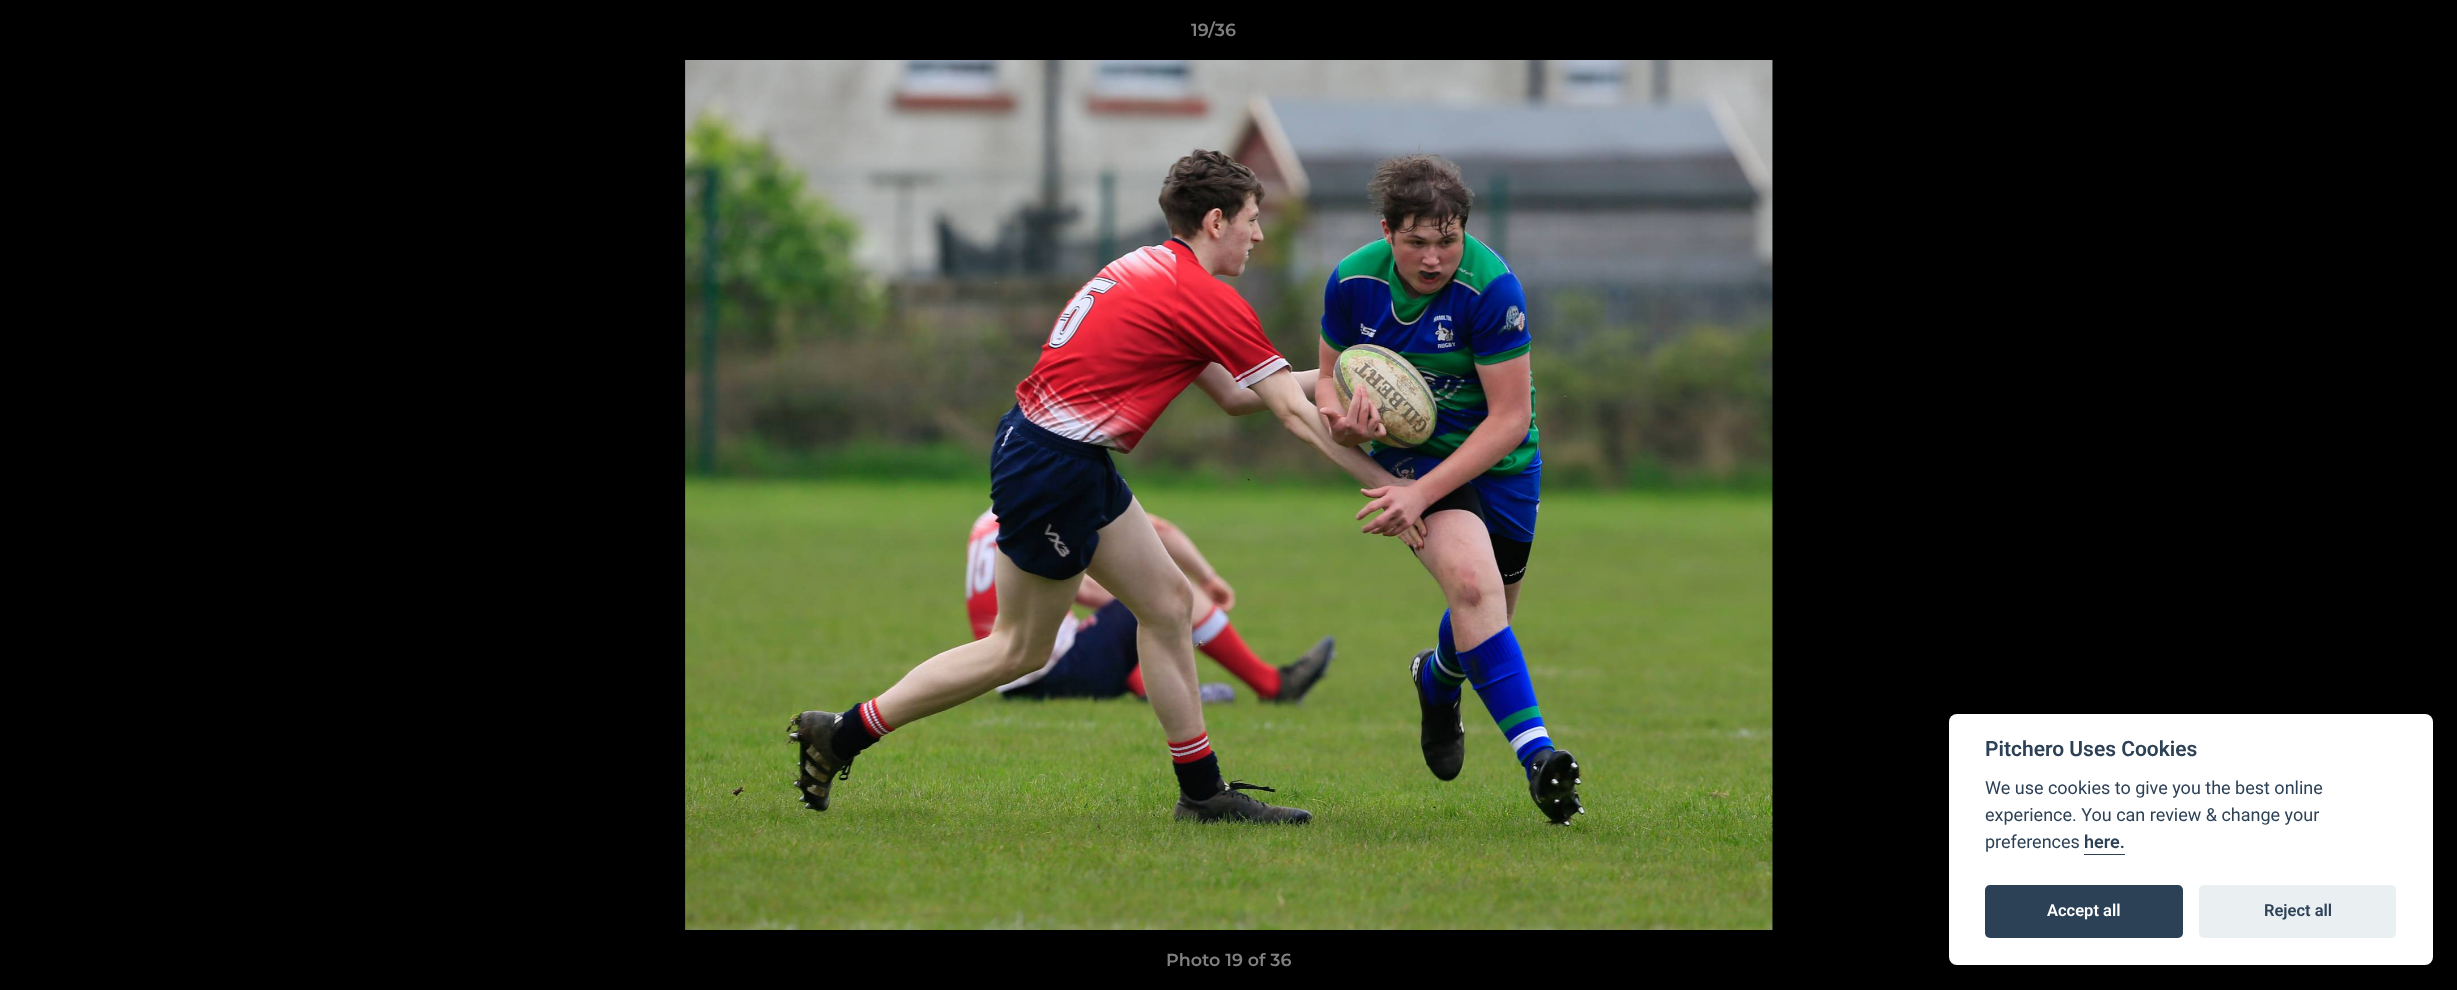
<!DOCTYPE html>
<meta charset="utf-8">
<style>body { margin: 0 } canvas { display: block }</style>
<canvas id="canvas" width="2457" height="990"></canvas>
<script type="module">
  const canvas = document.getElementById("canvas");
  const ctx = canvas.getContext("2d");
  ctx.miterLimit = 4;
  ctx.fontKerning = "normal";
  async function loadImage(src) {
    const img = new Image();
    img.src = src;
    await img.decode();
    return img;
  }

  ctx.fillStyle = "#000000";
  ctx.fillRect(0, 0, 2457, 990);
  ctx.font = "600 17.5px Montserrat";
  ctx.fillStyle = "#808080";
  ctx.fillText("19/36", 1191, 36);
  ctx.drawImage(await loadImage("img1.png"), 685, 60, 1088, 870);
  ctx.fillText("Photo 19 of 36", 1166, 966);
  ctx.fillStyle = "#ffffff";
  ctx.beginPath();
  ctx.roundRect(1949, 714, 484, 251, 8);
  ctx.fill();
  ctx.font = "600 21px Roboto";
  ctx.fillStyle = "#2d4156";
  ctx.fillText("Pitchero Uses Cookies", 1985, 756);
  ctx.font = "18px Roboto";
  ctx.fillText("We use cookies to give you the best online", 1985, 794);
  ctx.fillText("experience. You can review & change your", 1985, 821);
  ctx.fillText("preferences", 1985, 848);
  ctx.font = "600 18px Roboto";
  ctx.fillText("here.", 2084, 848);
  ctx.fillRect(2084, 854, 41, 1);
  ctx.beginPath();
  ctx.roundRect(1985, 885, 198, 53, 5);
  ctx.fill();
  ctx.font = "600 16.5px Roboto";
  ctx.fillStyle = "#ffffff";
  ctx.fillText("Accept all", 2047, 916);
  ctx.fillStyle = "#eaeff2";
  ctx.beginPath();
  ctx.roundRect(2199, 885, 197, 53, 5);
  ctx.fill();
  ctx.fillStyle = "#2d4156";
  ctx.fillText("Reject all", 2264, 916);
</script>
